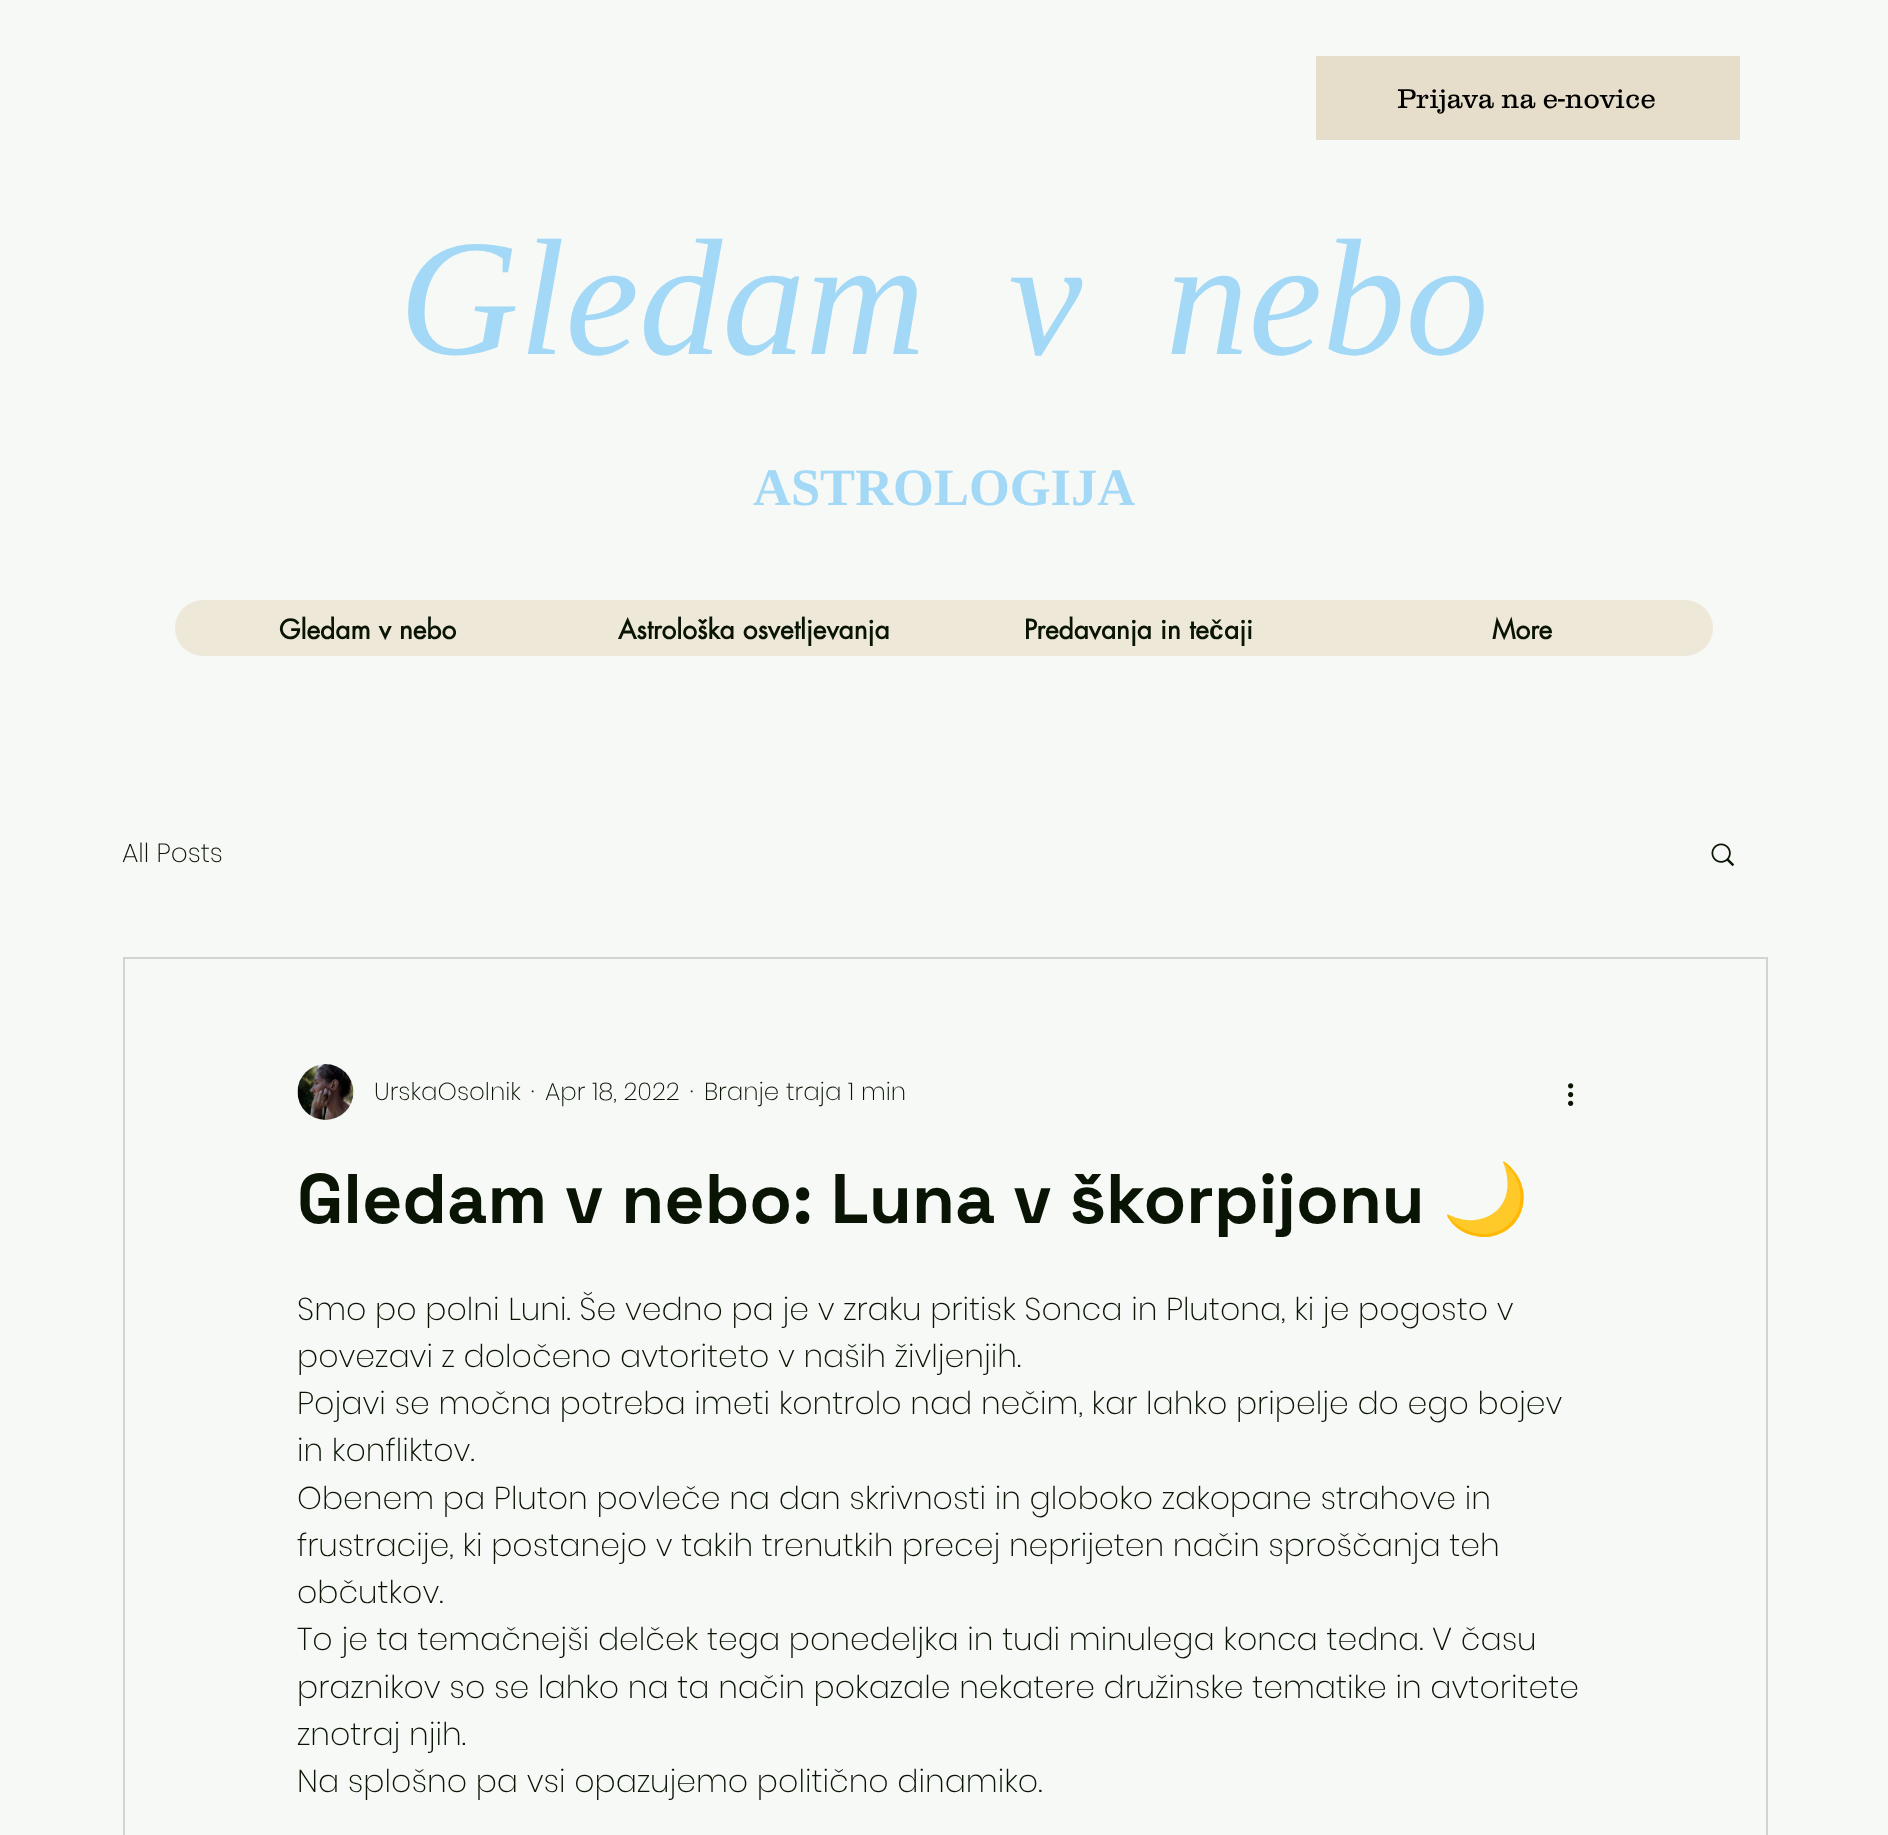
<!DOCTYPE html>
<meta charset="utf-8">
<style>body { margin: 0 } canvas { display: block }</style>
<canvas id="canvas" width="1888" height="1835"></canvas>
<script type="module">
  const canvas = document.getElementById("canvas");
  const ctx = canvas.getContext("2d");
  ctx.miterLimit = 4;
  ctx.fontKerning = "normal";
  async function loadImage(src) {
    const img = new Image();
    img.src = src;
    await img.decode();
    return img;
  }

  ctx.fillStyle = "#f6f9f5";
  ctx.fillRect(0, 0, 1888, 1835);
  ctx.fillStyle = "#e6deca";
  ctx.fillRect(1316, 56, 424, 84);
  ctx.font = "300 28px 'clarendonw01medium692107'";
  ctx.fillStyle = "#000000";
  ctx.fillText("Prijava na e-novice", 1397, 108);
  ctx.font = "italic 166.25px Liberation Serif";
  ctx.fillStyle = "#a3d9f6";
  ctx.fillText("Gledam  v  nebo", 399, 354);
  ctx.font = "bold 52.5px Liberation Serif";
  ctx.fillText("ASTROLOGIJA", 753, 505);
  ctx.fillStyle = "#eee8d8";
  ctx.beginPath();
  ctx.roundRect(175, 600, 1538, 56, 28);
  ctx.fill();
  ctx.font = "bold 26.25px futura";
  ctx.fillStyle = "#091405";
  ctx.fillText("Gledam v nebo", 279, 639);
  ctx.fillText("Astrološka osvetljevanja", 618, 639);
  ctx.fillText("Predavanja in te", 1024, 639);
  ctx.font = "bold 26.25px Liberation Sans";
  ctx.fillText("č", 1209, 639);
  ctx.font = "bold 26.25px futura";
  ctx.fillText("aji", 1224, 639);
  ctx.fillText("More", 1492, 639);
  ctx.font = "200 26.25px Poppins";
  ctx.fillText("All Posts", 122, 862);
  ctx.drawImage(await loadImage("img1.png"), 1711, 843, 24, 24);
  ctx.strokeStyle = "#d1d4d0";
  ctx.lineWidth = 2;
  ctx.strokeRect(124, 958, 1643, 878);
  ctx.drawImage(await loadImage("img2.png"), 297, 1064, 57, 56);
  ctx.font = "200 24.5px Poppins";
  ctx.fillText("UrskaOsolnik", 374, 1100);
  ctx.fillText("·", 531, 1100);
  ctx.fillText("Apr 18, 2022", 545, 1100);
  ctx.fillText("·", 690, 1100);
  ctx.fillText("Branje traja 1 min", 704, 1100);
  ctx.drawImage(await loadImage("img3.png"), 1568, 1083, 6, 23);
  ctx.font = "bold 70px Space Grotesk";
  ctx.fillText("Gledam v nebo: Luna v škorpijonu", 297, 1223);
  ctx.font = "bold 70px Noto Color Emoji";
  ctx.fillText("🌙", 1442, 1223);
  ctx.font = "200 31.5px Poppins";
  ctx.fillText("Smo po polni Luni. Še vedno pa je v zraku pritisk Sonca in Plutona, ki je pogosto v", 297, 1320);
  ctx.fillText("povezavi z določeno avtoriteto v naših življenjih.", 297, 1367);
  ctx.fillText("Pojavi se močna potreba imeti kontrolo nad nečim, kar lahko pripelje do ego bojev", 297, 1414);
  ctx.fillText("in konfliktov.", 297, 1461);
  ctx.fillText("Obenem pa Pluton povleče na dan skrivnosti in globoko zakopane strahove in", 297, 1509);
  ctx.fillText("frustracije, ki postanejo v takih trenutkih precej neprijeten način sproščanja teh", 297, 1556);
  ctx.fillText("občutkov.", 297, 1603);
  ctx.fillText("To je ta temačnejši delček tega ponedeljka in tudi minulega konca tedna. V času", 297, 1650);
  ctx.fillText("praznikov so se lahko na ta način pokazale nekatere družinske tematike in avtoritete", 297, 1698);
  ctx.fillText("znotraj njih.", 297, 1745);
  ctx.fillText("Na splošno pa vsi opazujemo politično dinamiko.", 297, 1792);
</script>
